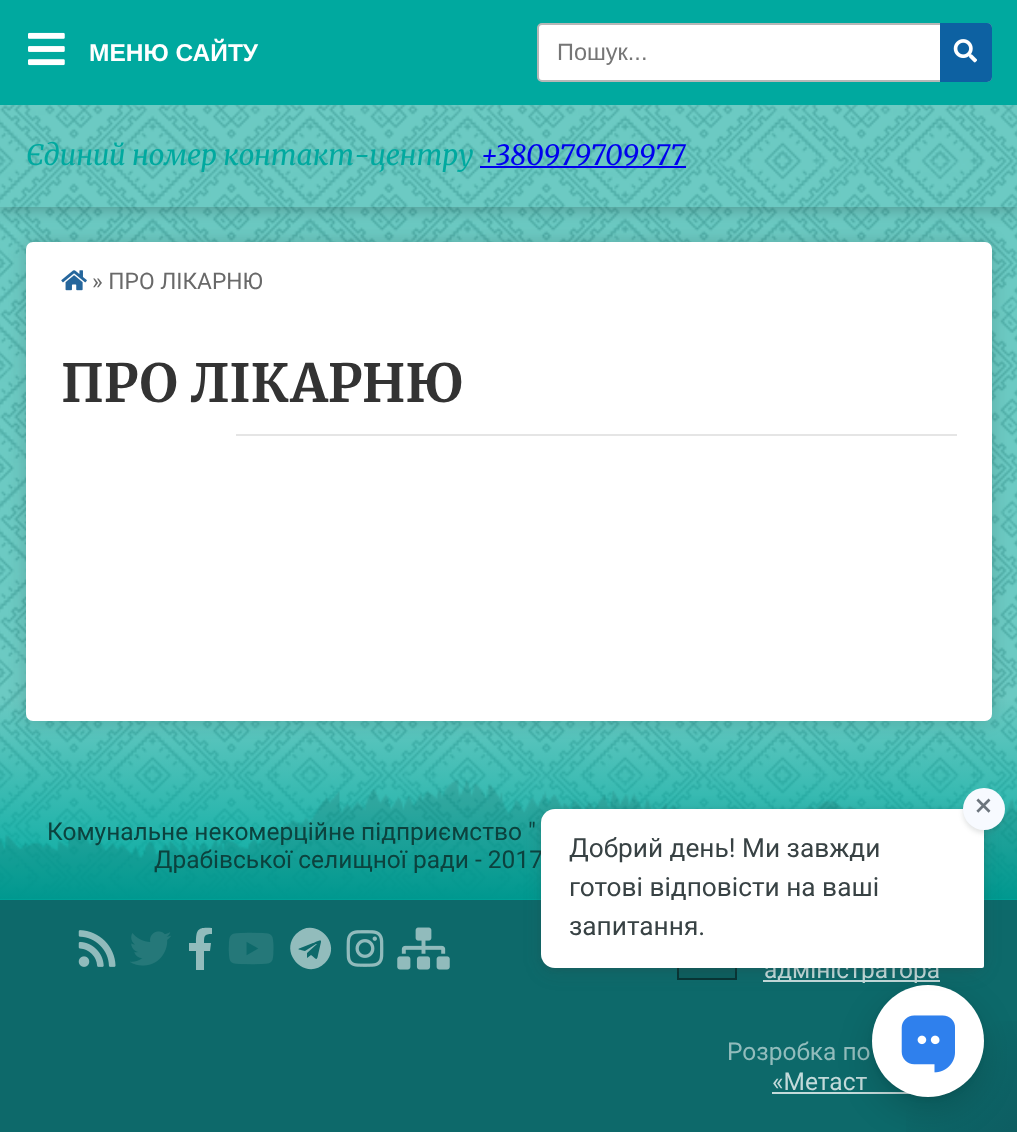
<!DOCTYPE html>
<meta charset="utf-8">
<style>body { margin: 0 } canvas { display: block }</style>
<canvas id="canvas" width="1017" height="1132"></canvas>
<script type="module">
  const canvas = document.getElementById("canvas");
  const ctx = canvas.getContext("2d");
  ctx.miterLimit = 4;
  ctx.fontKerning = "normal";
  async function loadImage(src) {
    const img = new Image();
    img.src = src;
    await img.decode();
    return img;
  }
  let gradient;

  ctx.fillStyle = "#54c3bd";
  ctx.fillRect(0, 0, 1017, 1132);
  ctx.drawImage(await loadImage("img1.png"), 0, 105, 1017, 794);
  gradient = ctx.createLinearGradient(509, 695, 509, 900);
  gradient.addColorStop(0, "rgba(0, 169, 159, 0)");
  gradient.addColorStop(1, "#00a99f");
  ctx.fillStyle = gradient;
  ctx.fillRect(0, 700, 1017, 200);
  ctx.fillStyle = "rgba(0, 0, 0, 0.15)";
  ctx.filter = "blur(9px)";
  ctx.beginPath();
  ctx.roundRect(26, 242, 966, 479, 7);
  ctx.fill();
  ctx.filter = "none";
  ctx.fillStyle = "#ffffff";
  ctx.beginPath();
  ctx.roundRect(26, 242, 966, 479, 7);
  ctx.fill();
  ctx.save();
  ctx.beginPath();
  ctx.moveTo(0, 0);
  ctx.lineTo(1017, 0);
  ctx.lineTo(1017, 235);
  ctx.lineTo(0, 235);
  ctx.closePath();
  ctx.moveTo(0, -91);
  ctx.lineTo(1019, -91);
  ctx.lineTo(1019, 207);
  ctx.lineTo(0, 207);
  ctx.closePath();
  ctx.clip("evenodd");
  ctx.fillStyle = "rgba(0, 0, 0, 0.3)";
  ctx.filter = "blur(9px)";
  ctx.beginPath();
  ctx.rect(0, -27, 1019, 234);
  ctx.fill();
  ctx.filter = "none";
  ctx.restore();
  ctx.fillStyle = "#00a99f";
  ctx.fillRect(0, 0, 1017, 105);
  ctx.drawImage(await loadImage("img2.png"), 28, 32, 37, 34);
  ctx.font = "bold 24.5px Liberation Sans";
  ctx.fillStyle = "#ffffff";
  ctx.fillText("МЕНЮ САЙТУ", 89, 61);
  ctx.drawImage(await loadImage("img3.png"), 61, 270, 26, 21);
  ctx.font = "22.75px Roboto";
  ctx.fillStyle = "#696969";
  ctx.fillText("» ПРО ЛІКАРНЮ", 92, 289);
  ctx.fillStyle = "#e5e5e5";
  ctx.fillRect(236, 434, 721, 2);
  ctx.font = "300 52.5px Merriweather";
  ctx.fillStyle = "#333333";
  ctx.fillText("ПРО ЛІКАРНЮ", 61, 402);
  ctx.fillStyle = "#ffffff";
  ctx.beginPath();
  ctx.roundRect(538, 24, 453, 57, 4);
  ctx.fill();
  ctx.strokeStyle = "#b7b7b7";
  ctx.lineWidth = 2;
  ctx.stroke();
  ctx.font = "23.5px Liberation Sans";
  ctx.fillStyle = "#757575";
  ctx.fillText("Пошук...", 557, 60);
  ctx.fillStyle = "#0d61a2";
  ctx.beginPath();
  ctx.roundRect(940, 23, 52, 59, [0, 5, 5, 0]);
  ctx.fill();
  ctx.drawImage(await loadImage("img4.png"), 953, 39, 24, 24);
  ctx.font = "italic 300 28px Merriweather";
  ctx.fillStyle = "#00a99f";
  ctx.fillText("Єдиний номер контакт-центру", 26, 165);
  ctx.fillStyle = "#0000ee";
  ctx.fillText("+380979709977", 480, 165);
  ctx.fillRect(480, 166, 206, 2);
  ctx.drawImage(await loadImage("img5.png"), 0, 779, 1017, 121);
  ctx.font = "24.5px Roboto";
  ctx.fillStyle = "#0c423e";
  ctx.fillText("Комунальне некомерційне підприємство \"", 47, 840);
  ctx.fillText("Драбівської селищної ради - 2017", 154, 868);
  ctx.fillStyle = "#0d696a";
  ctx.fillRect(0, 900, 1017, 232);
  ctx.drawImage(await loadImage("img6.png"), 78, 930, 38, 37);
  ctx.drawImage(await loadImage("img7.png"), 130, 931, 41, 35);
  ctx.fillStyle = "#92bcbc";
  ctx.beginPath();
  ctx.moveTo(210, 951);
  ctx.lineTo(204, 951);
  ctx.lineTo(204, 970);
  ctx.lineTo(196, 970);
  ctx.lineTo(196, 951);
  ctx.lineTo(189, 951);
  ctx.lineTo(189, 943);
  ctx.lineTo(196, 943);
  ctx.bezierCurveTo(196, 929, 198, 927, 212, 928);
  ctx.lineTo(212, 934);
  ctx.bezierCurveTo(204, 934, 204, 936, 204, 943);
  ctx.lineTo(211, 943);
  ctx.closePath();
  ctx.fill();
  ctx.drawImage(await loadImage("img8.png"), 228, 932, 46, 33);
  ctx.beginPath();
  ctx.moveTo(296, 934);
  ctx.bezierCurveTo(315, 915, 344, 944, 325, 963);
  ctx.bezierCurveTo(306, 982, 278, 953, 296, 934);
  ctx.closePath();
  ctx.moveTo(321, 942);
  ctx.bezierCurveTo(322, 938, 314, 943, 313, 943);
  ctx.lineTo(303, 947);
  ctx.bezierCurveTo(295, 950, 299, 949, 305, 951);
  ctx.lineTo(316, 944);
  ctx.lineTo(317, 944);
  ctx.lineTo(307, 953);
  ctx.lineTo(307, 958);
  ctx.lineTo(311, 955);
  ctx.bezierCurveTo(315, 958, 317, 962, 318, 955);
  ctx.closePath();
  ctx.fill();
  ctx.drawImage(await loadImage("img9.png"), 346, 930, 38, 37);
  ctx.drawImage(await loadImage("img10.png"), 397, 927, 53, 43);
  ctx.fillStyle = "#0c5f5f";
  ctx.fillRect(679, 968, 56, 10);
  ctx.strokeStyle = "#073434";
  ctx.strokeRect(678, 927, 58, 52);
  ctx.fillStyle = "#c3dada";
  ctx.fillRect(763, 980, 177, 2);
  ctx.fillText("адміністратора", 764, 978);
  ctx.fillStyle = "#92bcbc";
  ctx.fillText("Розробка по", 727, 1060);
  ctx.fillStyle = "#c3dada";
  ctx.fillText("«Метаст", 772, 1090);
  ctx.fillRect(772, 1092, 138, 2);
  gradient = ctx.createLinearGradient(844, 957, 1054, 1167);
  gradient.addColorStop(0.5, "rgba(14, 14, 41, 0)");
  gradient.addColorStop(1, "rgba(14, 14, 41, 0.2)");
  ctx.fillStyle = gradient;
  ctx.fillRect(906, 1021, 111, 111);
  ctx.fillStyle = "rgba(0, 0, 0, 0.16)";
  ctx.filter = "blur(17.5px)";
  ctx.beginPath();
  ctx.roundRect(872, 999, 112, 112, 56);
  ctx.fill();
  ctx.filter = "none";
  ctx.fillStyle = "rgba(0, 0, 0, 0.32)";
  ctx.filter = "blur(4.5px)";
  ctx.beginPath();
  ctx.roundRect(877, 992, 101, 102, 50.5);
  ctx.fill();
  ctx.filter = "none";
  ctx.fillStyle = "#ffffff";
  ctx.beginPath();
  ctx.arc(928, 1041, 56, 0, Math.PI * 2);
  ctx.fill();
  ctx.fillStyle = "rgba(56, 66, 68, 0.15)";
  ctx.filter = "blur(9px)";
  ctx.beginPath();
  ctx.roundRect(541, 814, 443, 159, 14);
  ctx.fill();
  ctx.filter = "none";
  ctx.filter = "blur(2px)";
  ctx.beginPath();
  ctx.roundRect(541, 810, 443, 160, 14);
  ctx.fill();
  ctx.filter = "none";
  ctx.fillStyle = "#ffffff";
  ctx.beginPath();
  ctx.roundRect(541, 809, 443, 159, [14, 14, 2, 14]);
  ctx.fill();
  ctx.fillStyle = "rgba(56, 66, 68, 0.15)";
  ctx.filter = "blur(2.5px)";
  ctx.beginPath();
  ctx.roundRect(963, 791, 42, 42, 21);
  ctx.fill();
  ctx.filter = "none";
  ctx.fillStyle = "#f7faff";
  ctx.beginPath();
  ctx.arc(984, 809, 21, 0, Math.PI * 2);
  ctx.fill();
  ctx.font = "32px Roboto";
  ctx.fillStyle = "#6c757d";
  ctx.fillText("×", 975, 816);
  ctx.font = "26.25px Roboto";
  ctx.fillStyle = "#384244";
  ctx.fillText("Добрий день! Ми завжди", 569, 857);
  ctx.fillText("готові відповісти на ваші", 569, 896);
  ctx.fillText("запитання.", 569, 935);
  ctx.drawImage(await loadImage("img11.png"), 901, 1015, 54, 58);
</script>
